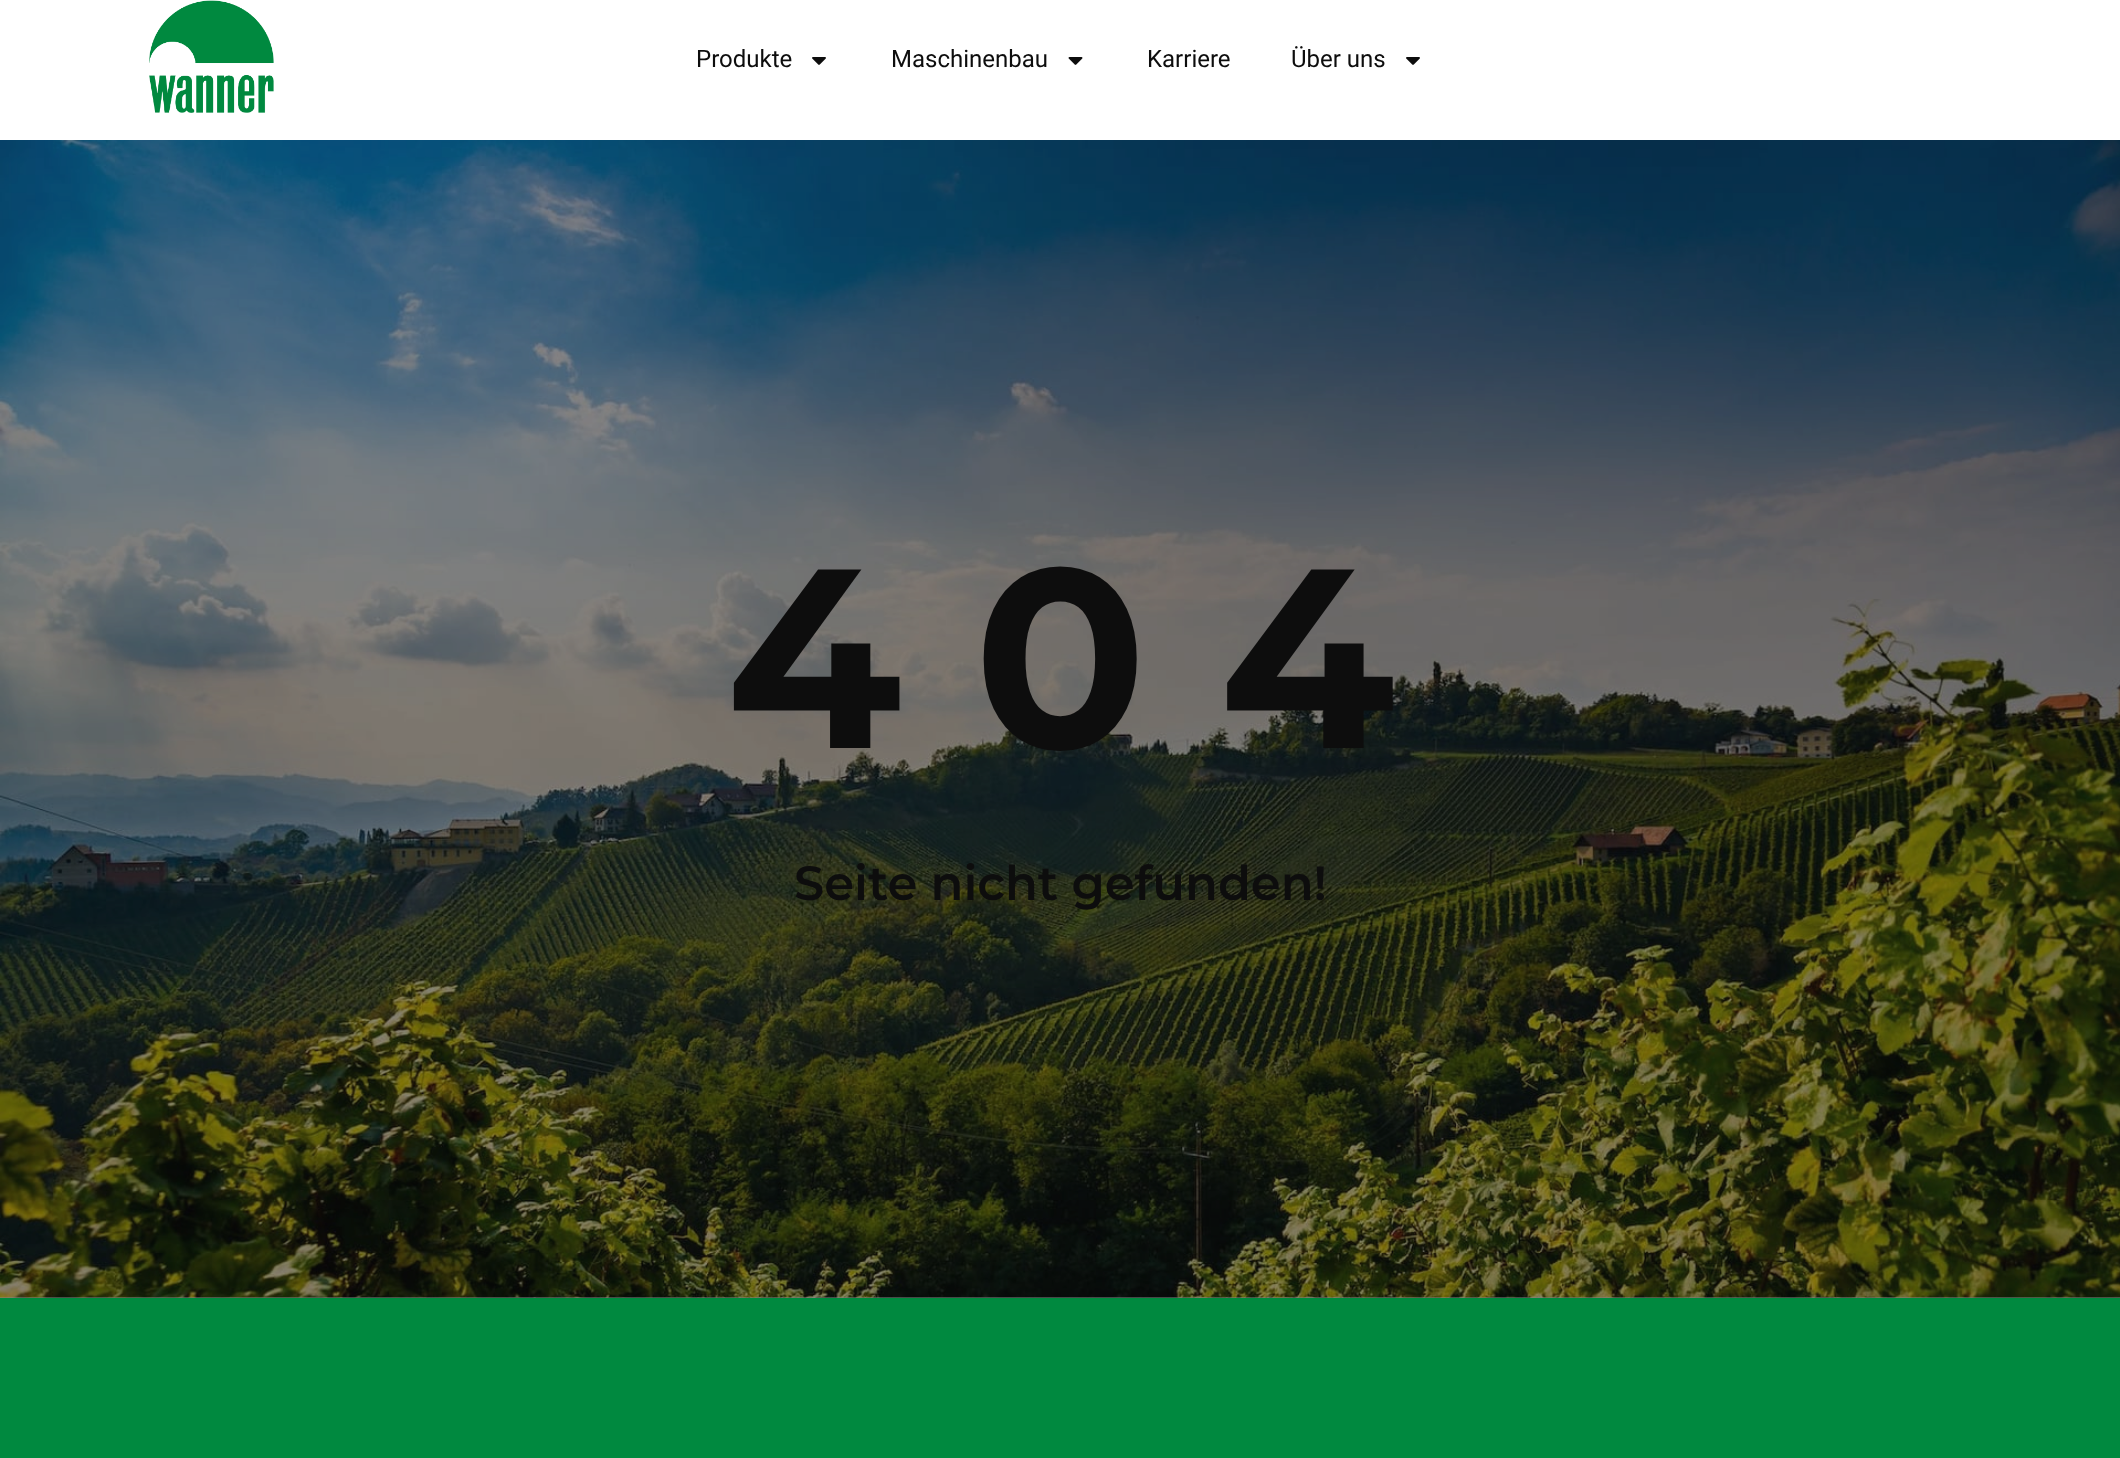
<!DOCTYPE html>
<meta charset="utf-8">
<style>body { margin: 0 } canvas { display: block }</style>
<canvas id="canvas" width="2120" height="1458"></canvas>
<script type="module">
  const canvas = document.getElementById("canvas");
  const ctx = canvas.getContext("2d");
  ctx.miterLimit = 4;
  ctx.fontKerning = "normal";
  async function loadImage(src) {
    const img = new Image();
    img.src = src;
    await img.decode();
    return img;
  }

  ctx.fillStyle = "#868686";
  ctx.fillRect(0, 0, 2120, 1458);
  ctx.fillStyle = "#ffffff";
  ctx.fillRect(0, 0, 2120, 140);
  ctx.drawImage(await loadImage("img1.png"), 149, 0, 125, 113);
  ctx.font = "24px Roboto";
  ctx.fillStyle = "#0d0d0d";
  ctx.fillText("Produkte", 696, 67);
  ctx.drawImage(await loadImage("img2.png"), 812, 57, 14, 8);
  ctx.fillText("Maschinenbau", 891, 67);
  ctx.drawImage(await loadImage("img3.png"), 1068, 57, 15, 8);
  ctx.fillText("Karriere", 1147, 67);
  ctx.fillText("Über uns", 1291, 67);
  ctx.drawImage(await loadImage("img2.png"), 1406, 57, 14, 8);
  ctx.drawImage(await loadImage("img4.png"), 0, 140, 2120, 1158);
  ctx.font = "bold 255px Montserrat";
  ctx.fillText("4 0 4", 726, 748);
  ctx.font = "600 48px Montserrat";
  ctx.fillText("Seite nicht gefunden!", 794, 900);
  ctx.fillStyle = "#00893f";
  ctx.fillRect(0, 1298, 2120, 160);
</script>
